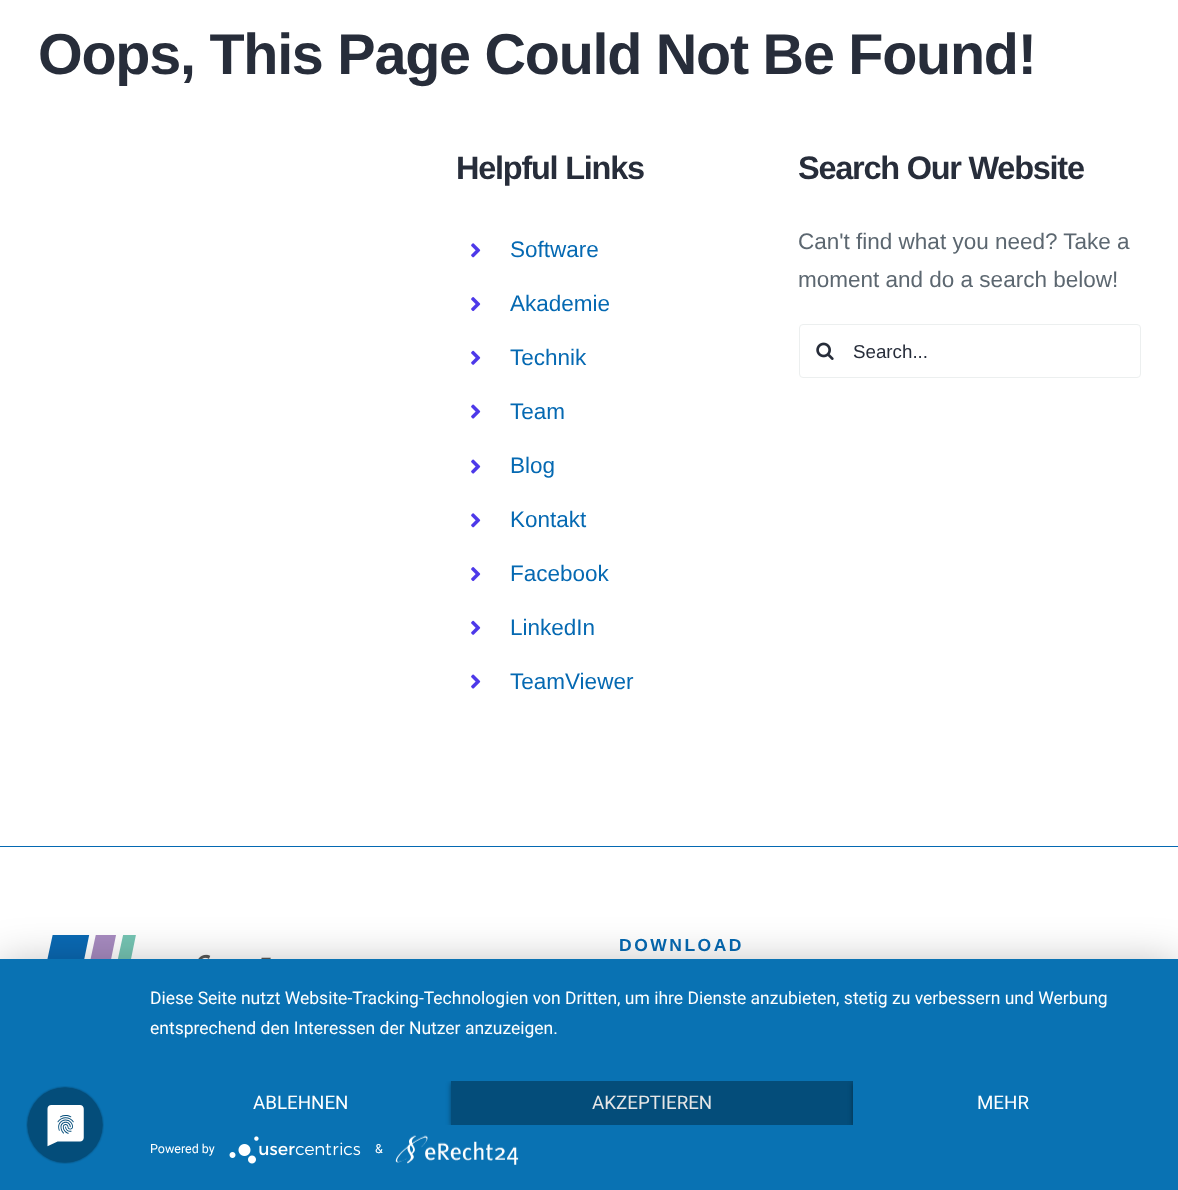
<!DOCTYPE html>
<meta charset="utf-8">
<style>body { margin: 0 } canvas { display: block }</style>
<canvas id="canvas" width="1178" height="1190"></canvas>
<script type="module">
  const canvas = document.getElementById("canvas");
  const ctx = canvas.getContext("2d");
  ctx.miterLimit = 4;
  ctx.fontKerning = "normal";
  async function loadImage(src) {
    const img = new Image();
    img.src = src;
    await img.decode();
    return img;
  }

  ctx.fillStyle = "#ffffff";
  ctx.fillRect(0, 0, 1178, 1190);
  ctx.letterSpacing = "-1.25px";
  ctx.font = "bold 57.5px Liberation Sans";
  ctx.fillStyle = "#272d3a";
  ctx.fillText("Oops, This Page Could Not Be Found!", 38, 74);
  ctx.font = "bold 32.5px Liberation Sans";
  ctx.fillText("Helpful Links", 456, 179);
  ctx.drawImage(await loadImage("img1.png"), 471, 243, 10, 15);
  ctx.letterSpacing = "0px";
  ctx.font = "22.5px Liberation Sans";
  ctx.fillStyle = "#0569b2";
  ctx.fillText("Software", 510, 257);
  ctx.drawImage(await loadImage("img2.png"), 471, 297, 10, 15);
  ctx.fillText("Akademie", 510, 311);
  ctx.drawImage(await loadImage("img3.png"), 471, 350, 10, 15);
  ctx.fillText("Technik", 510, 365);
  ctx.drawImage(await loadImage("img4.png"), 471, 404, 10, 15);
  ctx.fillText("Team", 510, 419);
  ctx.drawImage(await loadImage("img4.png"), 471, 459, 10, 15);
  ctx.fillText("Blog", 510, 473);
  ctx.drawImage(await loadImage("img1.png"), 471, 513, 10, 15);
  ctx.fillText("Kontakt", 510, 527);
  ctx.drawImage(await loadImage("img2.png"), 471, 567, 10, 15);
  ctx.fillText("Facebook", 510, 581);
  ctx.drawImage(await loadImage("img3.png"), 471, 620, 10, 15);
  ctx.fillText("LinkedIn", 510, 635);
  ctx.drawImage(await loadImage("img4.png"), 471, 674, 10, 15);
  ctx.fillText("TeamViewer", 510, 689);
  ctx.letterSpacing = "-1.25px";
  ctx.font = "bold 32.5px Liberation Sans";
  ctx.fillStyle = "#272d3a";
  ctx.fillText("Search Our Website", 798, 179);
  ctx.letterSpacing = "0px";
  ctx.font = "22.5px Liberation Sans";
  ctx.fillStyle = "#5c6770";
  ctx.fillText("Can't find what you need? Take a", 798, 249);
  ctx.fillText("moment and do a search below!", 798, 287);
  ctx.beginPath();
  ctx.roundRect(799.5, 324.5, 341, 53, 3.5);
  ctx.strokeStyle = "#ecefef";
  ctx.stroke();
  ctx.drawImage(await loadImage("img5.png"), 816, 342, 18, 18);
  ctx.font = "18.75px Liberation Sans";
  ctx.fillStyle = "#272d3a";
  ctx.fillText("Search...", 853, 358);
  ctx.fillStyle = "#0569b2";
  ctx.fillRect(0, 846, 1178, 1);
  ctx.drawImage(await loadImage("img6.png"), 47, 935, 224, 24);
  ctx.letterSpacing = "2.5px";
  ctx.font = "bold 17.5px Liberation Sans";
  ctx.fillText("DOWNLOAD", 619, 951);
  ctx.fillStyle = "rgba(0, 0, 0, 0.3)";
  ctx.filter = "blur(22.5px)";
  ctx.beginPath();
  ctx.rect(0, 966, 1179, 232);
  ctx.fill();
  ctx.filter = "none";
  ctx.fillStyle = "#0972b3";
  ctx.fillRect(0, 959, 1178, 231);
  ctx.drawImage(await loadImage("img7.png"), 26, 1086, 78, 78);
  ctx.letterSpacing = "0px";
  ctx.font = "17.5px Roboto";
  ctx.fillStyle = "#ffffff";
  ctx.fillText("Diese Seite nutzt Website-Tracking-Technologien von Dritten, um ihre Dienste anzubieten, stetig zu verbessern und Werbung", 150, 1004);
  ctx.fillText("entsprechend den Interessen der Nutzer anzuzeigen.", 150, 1034);
  ctx.font = "18.75px Roboto";
  ctx.fillText("ABLEHNEN", 253, 1109);
  ctx.save();
  ctx.beginPath();
  ctx.rect(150, 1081, 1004, 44);
  ctx.clip();
  ctx.fillStyle = "rgba(0, 0, 0, 0.4)";
  ctx.filter = "blur(2.5px)";
  ctx.beginPath();
  ctx.rect(451, 1083, 402, 43);
  ctx.fill();
  ctx.filter = "none";
  ctx.restore();
  ctx.fillStyle = "#044d7a";
  ctx.fillRect(451, 1081, 402, 44);
  ctx.fillStyle = "#e6e6e6";
  ctx.fillText("AKZEPTIEREN", 592, 1109);
  ctx.save();
  ctx.beginPath();
  ctx.rect(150, 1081, 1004, 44);
  ctx.clip();
  ctx.fillStyle = "rgba(0, 0, 0, 0.4)";
  ctx.filter = "blur(2.5px)";
  ctx.beginPath();
  ctx.rect(853, 1083, 301, 43);
  ctx.fill();
  ctx.filter = "none";
  ctx.restore();
  ctx.fillStyle = "#0972b3";
  ctx.fillRect(853, 1081, 301, 44);
  ctx.fillStyle = "#ffffff";
  ctx.fillText("MEHR", 977, 1109);
  ctx.font = "12.5px Roboto";
  ctx.fillText("Powered by", 150, 1153);
  ctx.drawImage(await loadImage("img8.png"), 229, 1136, 132, 28);
  ctx.fillText("&", 375, 1153);
  ctx.drawImage(await loadImage("img9.png"), 395, 1135, 124, 30);
</script>
